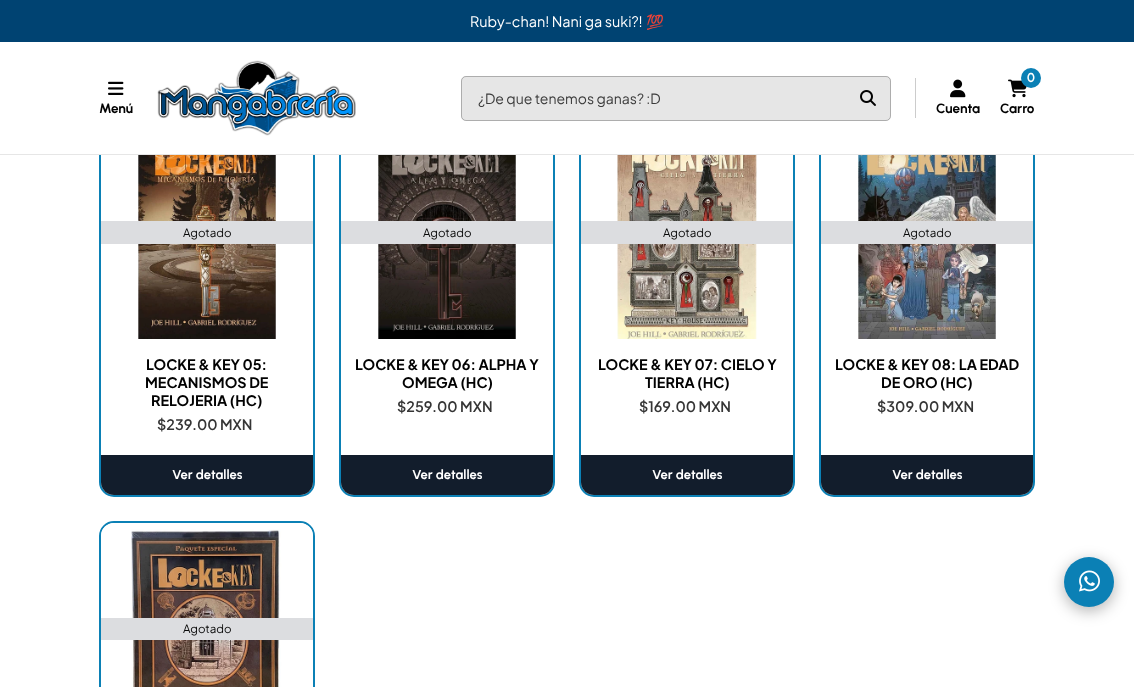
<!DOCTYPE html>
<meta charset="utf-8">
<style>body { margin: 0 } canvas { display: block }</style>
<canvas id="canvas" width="1134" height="687"></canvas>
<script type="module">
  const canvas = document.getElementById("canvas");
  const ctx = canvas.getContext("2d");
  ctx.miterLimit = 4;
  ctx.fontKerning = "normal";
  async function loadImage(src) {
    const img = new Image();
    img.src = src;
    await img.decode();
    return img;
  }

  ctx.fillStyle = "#ffffff";
  ctx.fillRect(0, 0, 1134, 687);
  ctx.beginPath();
  ctx.roundRect(100, 126, 214, 370, 14);
  ctx.strokeStyle = "#0b80b5";
  ctx.lineWidth = 2;
  ctx.stroke();
  ctx.beginPath();
  ctx.roundRect(340, 126, 214, 370, 14);
  ctx.stroke();
  ctx.beginPath();
  ctx.roundRect(580, 126, 214, 370, 14);
  ctx.stroke();
  ctx.beginPath();
  ctx.roundRect(820, 126, 214, 370, 14);
  ctx.stroke();
  ctx.fillRect(99, 125, 936, 29);
  ctx.fillStyle = "#e6e6e6";
  ctx.fillRect(0, 154, 1134, 1);
  ctx.fillStyle = "#004372";
  ctx.fillRect(0, 0, 1134, 42);
  ctx.font = "14.4px Plus Jakarta Sans";
  ctx.fillStyle = "#ffffff";
  ctx.fillText("Ruby-chan! Nani ga suki?!", 470, 27);
  ctx.font = "14.4px Noto Color Emoji";
  ctx.fillText("💯", 646, 27);
  ctx.drawImage(await loadImage("img1.png"), 157, 60, 199, 76);
  ctx.fillStyle = "#e6e6e6";
  ctx.beginPath();
  ctx.roundRect(461, 76, 430, 45, 5);
  ctx.fill();
  ctx.beginPath();
  ctx.roundRect(461.5, 76.5, 429, 44, 4.5);
  ctx.strokeStyle = "rgba(2, 2, 2, 0.25)";
  ctx.lineWidth = 1;
  ctx.stroke();
  ctx.font = "14px Plus Jakarta Sans";
  ctx.fillStyle = "#3b3b3b";
  ctx.fillText("¿De que tenemos ganas? :D", 478, 104);
  ctx.drawImage(await loadImage("img2.png"), 860, 90, 16, 16);
  ctx.fillStyle = "#cccccc";
  ctx.fillRect(915, 78, 1, 40);
  ctx.drawImage(await loadImage("img3.png"), 950, 79, 16, 19);
  ctx.font = "bold 13.5px Urbanist";
  ctx.fillStyle = "#020202";
  ctx.fillText("Cuenta", 936, 113);
  ctx.drawImage(await loadImage("img4.png"), 1008, 79, 19, 19);
  ctx.fillStyle = "#0b80b5";
  ctx.beginPath();
  ctx.arc(1031, 78, 10, 0, Math.PI * 2);
  ctx.fill();
  ctx.font = "bold 13px Urbanist";
  ctx.fillStyle = "#ffffff";
  ctx.fillText("0", 1027, 82);
  ctx.font = "bold 13.5px Urbanist";
  ctx.fillStyle = "#020202";
  ctx.fillText("Carro", 1000, 113);
  ctx.drawImage(await loadImage("img5.png"), 108, 81, 16, 14);
  ctx.fillText("Menú", 99, 113);
  ctx.drawImage(await loadImage("img6.png"), 138, 155, 138, 184);
  ctx.fillStyle = "#dcdde0";
  ctx.fillRect(101, 221, 212, 23);
  ctx.font = "11.5px Plus Jakarta Sans";
  ctx.fillStyle = "#090909";
  ctx.fillText("Agotado", 183, 237);
  ctx.font = "bold 14.4px Plus Jakarta Sans";
  ctx.fillStyle = "#020202";
  ctx.fillText("LOCKE & KEY 05:", 146, 370);
  ctx.fillText("MECANISMOS DE", 145, 388);
  ctx.fillText("RELOJERIA (HC)", 151, 406);
  ctx.font = "600 14.4px Plus Jakarta Sans";
  ctx.fillStyle = "#353535";
  ctx.fillText("$239.00 MXN", 157, 430);
  ctx.fillStyle = "#121d2c";
  ctx.beginPath();
  ctx.roundRect(101, 455, 212, 40, [0, 0, 13, 13]);
  ctx.fill();
  ctx.font = "bold 13px Urbanist";
  ctx.fillStyle = "#ffffff";
  ctx.fillText("Ver detalles", 172, 479);
  ctx.drawImage(await loadImage("img7.png"), 378, 155, 138, 184);
  ctx.fillStyle = "#dcdde0";
  ctx.fillRect(341, 221, 212, 23);
  ctx.font = "11.5px Plus Jakarta Sans";
  ctx.fillStyle = "#090909";
  ctx.fillText("Agotado", 423, 237);
  ctx.font = "bold 14.4px Plus Jakarta Sans";
  ctx.fillStyle = "#020202";
  ctx.fillText("LOCKE & KEY 06: ALPHA Y", 355, 370);
  ctx.fillText("OMEGA (HC)", 402, 388);
  ctx.font = "600 14.4px Plus Jakarta Sans";
  ctx.fillStyle = "#353535";
  ctx.fillText("$259.00 MXN", 397, 412);
  ctx.fillStyle = "#121d2c";
  ctx.beginPath();
  ctx.roundRect(341, 455, 212, 40, [0, 0, 13, 13]);
  ctx.fill();
  ctx.font = "bold 13px Urbanist";
  ctx.fillStyle = "#ffffff";
  ctx.fillText("Ver detalles", 412, 479);
  ctx.drawImage(await loadImage("img8.png"), 617, 155, 140, 184);
  ctx.fillStyle = "#dcdde0";
  ctx.fillRect(581, 221, 212, 23);
  ctx.font = "11.5px Plus Jakarta Sans";
  ctx.fillStyle = "#090909";
  ctx.fillText("Agotado", 663, 237);
  ctx.font = "bold 14.4px Plus Jakarta Sans";
  ctx.fillStyle = "#020202";
  ctx.fillText("LOCKE & KEY 07: CIELO Y", 598, 370);
  ctx.fillText("TIERRA (HC)", 645, 388);
  ctx.font = "600 14.4px Plus Jakarta Sans";
  ctx.fillStyle = "#353535";
  ctx.fillText("$169.00 MXN", 639, 412);
  ctx.fillStyle = "#121d2c";
  ctx.beginPath();
  ctx.roundRect(581, 455, 212, 40, [0, 0, 13, 13]);
  ctx.fill();
  ctx.font = "bold 13px Urbanist";
  ctx.fillStyle = "#ffffff";
  ctx.fillText("Ver detalles", 652, 479);
  ctx.drawImage(await loadImage("img9.png"), 858, 155, 138, 184);
  ctx.fillStyle = "#dcdde0";
  ctx.fillRect(821, 221, 212, 23);
  ctx.font = "11.5px Plus Jakarta Sans";
  ctx.fillStyle = "#090909";
  ctx.fillText("Agotado", 903, 237);
  ctx.font = "bold 14.4px Plus Jakarta Sans";
  ctx.fillStyle = "#020202";
  ctx.fillText("LOCKE & KEY 08: LA EDAD", 835, 370);
  ctx.fillText("DE ORO (HC)", 881, 388);
  ctx.font = "600 14.4px Plus Jakarta Sans";
  ctx.fillStyle = "#353535";
  ctx.fillText("$309.00 MXN", 877, 412);
  ctx.fillStyle = "#121d2c";
  ctx.beginPath();
  ctx.roundRect(821, 455, 212, 40, [0, 0, 13, 13]);
  ctx.fill();
  ctx.font = "bold 13px Urbanist";
  ctx.fillStyle = "#ffffff";
  ctx.fillText("Ver detalles", 892, 479);
  ctx.beginPath();
  ctx.roundRect(100, 522, 214, 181, 14);
  ctx.strokeStyle = "#0b80b5";
  ctx.lineWidth = 2;
  ctx.stroke();
  ctx.drawImage(await loadImage("img10.png"), 101, 523, 212, 164);
  ctx.fillStyle = "#dcdde0";
  ctx.fillRect(101, 618, 212, 22);
  ctx.font = "11.5px Plus Jakarta Sans";
  ctx.fillStyle = "#090909";
  ctx.fillText("Agotado", 183, 633);
  ctx.fillStyle = "rgba(2, 2, 2, 0.3)";
  ctx.filter = "blur(7.5px)";
  ctx.beginPath();
  ctx.roundRect(1064, 561, 50, 50, 25);
  ctx.fill();
  ctx.filter = "none";
  ctx.fillStyle = "#0b80b5";
  ctx.beginPath();
  ctx.arc(1089, 582, 25, 0, Math.PI * 2);
  ctx.fill();
  ctx.drawImage(await loadImage("img11.png"), 1079, 570, 21, 22);
</script>
